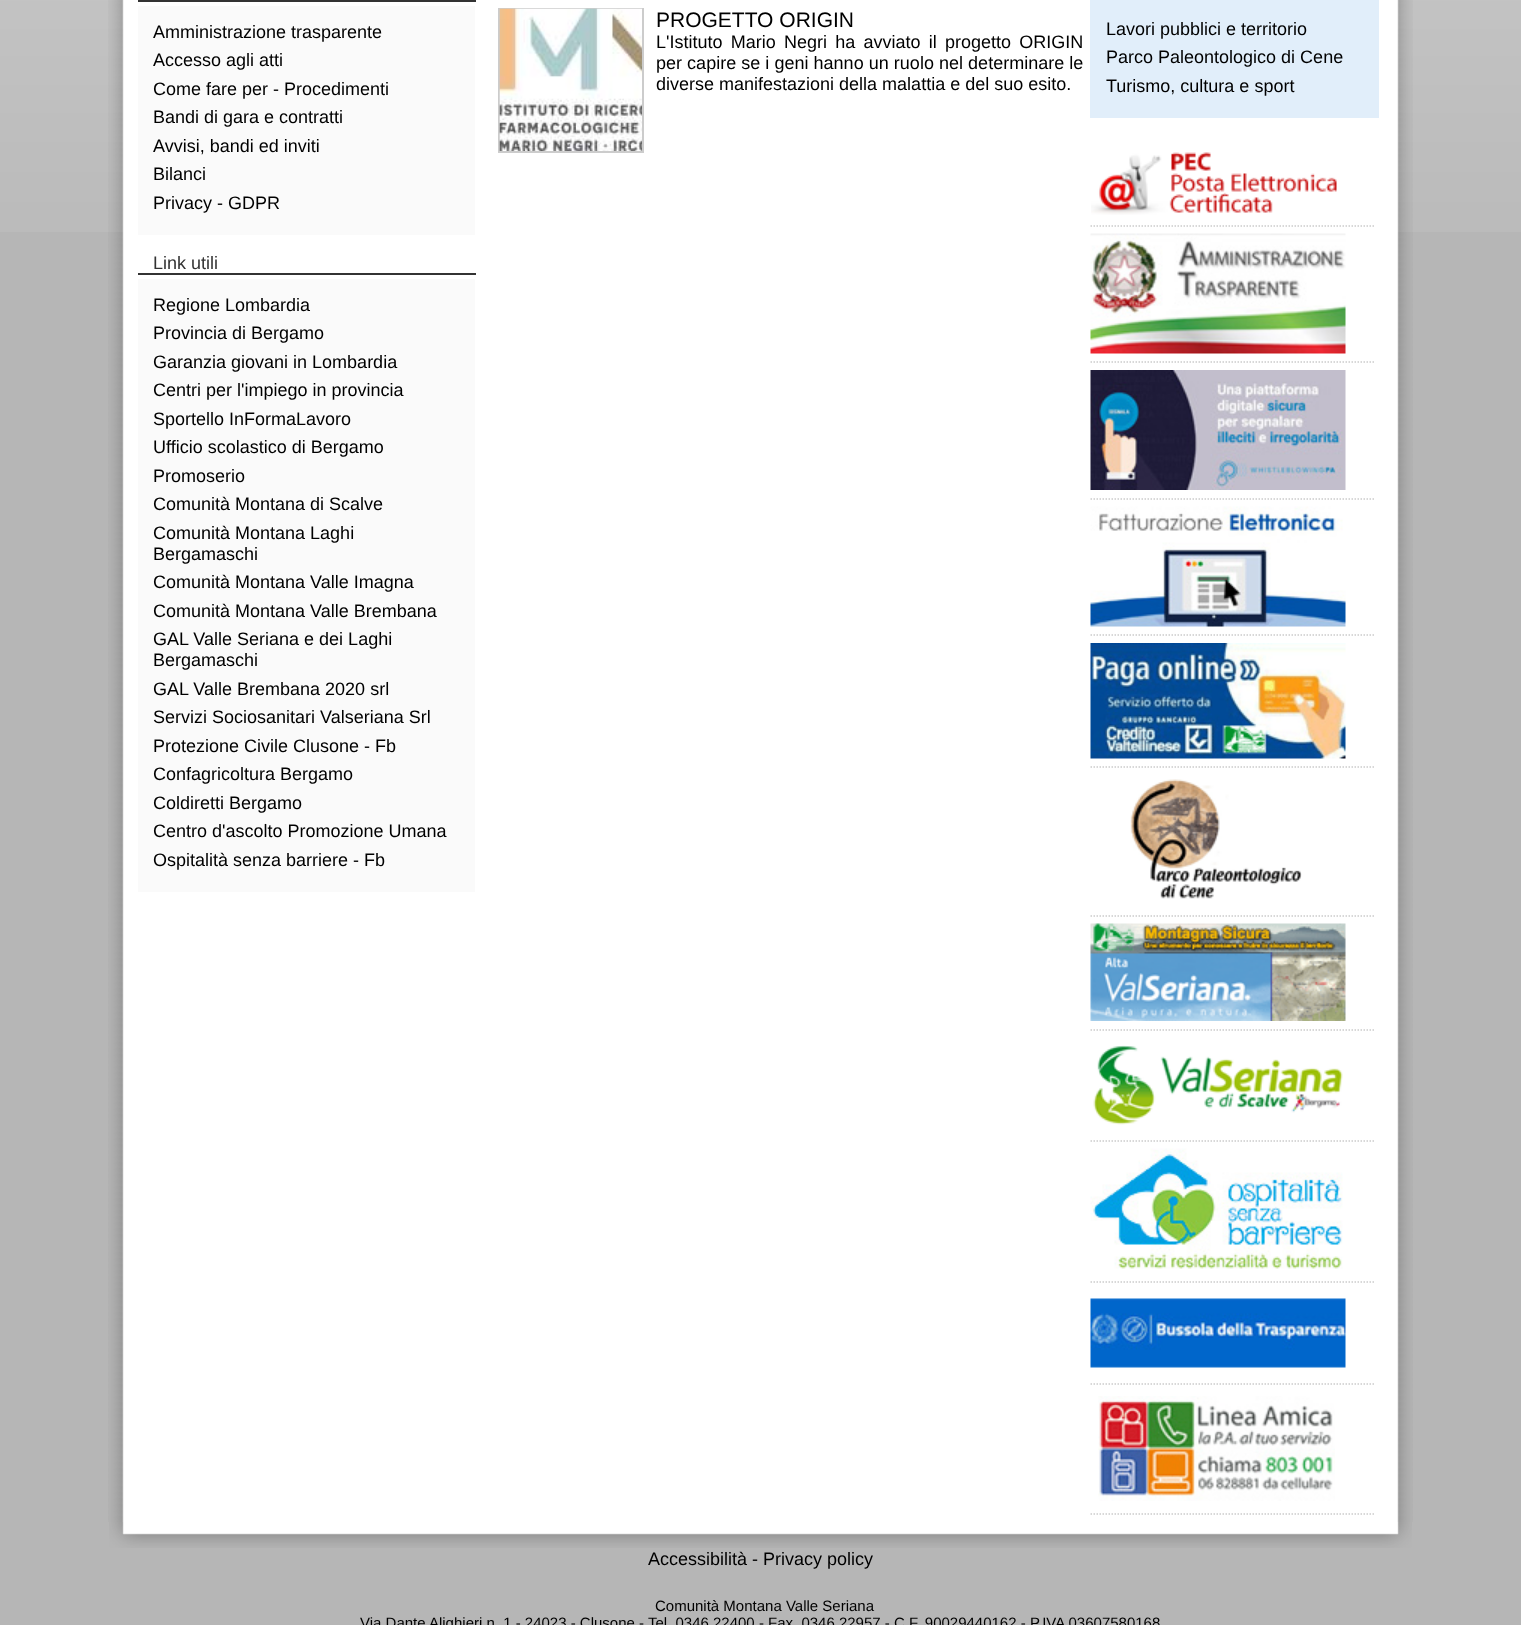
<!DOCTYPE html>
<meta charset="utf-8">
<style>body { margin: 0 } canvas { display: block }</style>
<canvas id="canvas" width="1521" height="1625"></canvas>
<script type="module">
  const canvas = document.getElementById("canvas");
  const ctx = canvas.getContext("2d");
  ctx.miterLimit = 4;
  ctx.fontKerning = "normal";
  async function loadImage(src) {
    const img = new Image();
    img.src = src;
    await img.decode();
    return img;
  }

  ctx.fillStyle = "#b6b6b6";
  ctx.fillRect(0, 0, 1521, 1625);
  ctx.drawImage(await loadImage("img1.png"), 0, 0, 1521, 232);
  ctx.drawImage(await loadImage("img2.png"), 108, 0, 1305, 1522);
  ctx.fillStyle = "#333333";
  ctx.fillRect(138, 0, 338, 2);
  ctx.fillStyle = "#fafafa";
  ctx.fillRect(138, 6, 337, 229);
  ctx.font = "18px Liberation Sans";
  ctx.fillStyle = "#000000";
  ctx.fillText("Amministrazione trasparente", 153, 38);
  ctx.fillText("Accesso agli atti", 153, 66);
  ctx.fillText("Come fare per - Procedimenti", 153, 95);
  ctx.fillText("Bandi di gara e contratti", 153, 123);
  ctx.fillText("Avvisi, bandi ed inviti", 153, 152);
  ctx.fillText("Bilanci", 153, 180);
  ctx.fillText("Privacy - GDPR", 153, 209);
  ctx.fillStyle = "#333333";
  ctx.fillRect(138, 273, 338, 2);
  ctx.fillText("Link utili", 153, 269);
  ctx.fillStyle = "#fafafa";
  ctx.fillRect(138, 279, 337, 613);
  ctx.fillStyle = "#000000";
  ctx.fillText("Regione Lombardia", 153, 311);
  ctx.fillText("Provincia di Bergamo", 153, 339);
  ctx.fillText("Garanzia giovani in Lombardia", 153, 368);
  ctx.fillText("Centri per l'impiego in provincia", 153, 396);
  ctx.fillText("Sportello InFormaLavoro", 153, 425);
  ctx.fillText("Ufficio scolastico di Bergamo", 153, 453);
  ctx.fillText("Promoserio", 153, 482);
  ctx.fillText("Comunità Montana di Scalve", 153, 510);
  ctx.fillText("Comunità Montana Laghi", 153, 539);
  ctx.fillText("Bergamaschi", 153, 560);
  ctx.fillText("Comunità Montana Valle Imagna", 153, 588);
  ctx.fillText("Comunità Montana Valle Brembana", 153, 617);
  ctx.fillText("GAL Valle Seriana e dei Laghi", 153, 645);
  ctx.fillText("Bergamaschi", 153, 666);
  ctx.fillText("GAL Valle Brembana 2020 srl", 153, 695);
  ctx.fillText("Servizi Sociosanitari Valseriana Srl", 153, 723);
  ctx.fillText("Protezione Civile Clusone - Fb", 153, 752);
  ctx.fillText("Confagricoltura Bergamo", 153, 780);
  ctx.fillText("Coldiretti Bergamo", 153, 809);
  ctx.fillText("Centro d'ascolto Promozione Umana", 153, 837);
  ctx.fillText("Ospitalità senza barriere - Fb", 153, 866);
  ctx.strokeStyle = "#cccccc";
  ctx.lineWidth = 2;
  ctx.strokeRect(499, 9, 144, 143);
  ctx.drawImage(await loadImage("img3.png"), 499, 8, 143, 143);
  ctx.font = "21px Liberation Sans";
  ctx.fillText("PROGETTO ORIGIN", 656, 27);
  ctx.wordSpacing = "3.25px";
  ctx.font = "18px Liberation Sans";
  ctx.fillText("L'Istituto Mario Negri ha avviato il progetto ORIGIN", 656, 48);
  ctx.wordSpacing = "0.1px";
  ctx.fillText("per capire se i geni hanno un ruolo nel determinare le", 656, 69);
  ctx.wordSpacing = "0px";
  ctx.fillText("diverse manifestazioni della malattia e del suo esito.", 656, 90);
  ctx.fillStyle = "#e1eefa";
  ctx.fillRect(1090, 0, 289, 118);
  ctx.fillStyle = "#000000";
  ctx.fillText("Lavori pubblici e territorio", 1106, 35);
  ctx.fillText("Parco Paleontologico di Cene", 1106, 63);
  ctx.fillText("Turismo, cultura e sport", 1106, 92);
  ctx.beginPath();
  ctx.moveTo(1090.5, 226);
  ctx.lineTo(1375.5, 226);
  ctx.lineWidth = 1.5;
  ctx.setLineDash([1.5, 1.5]);
  ctx.stroke();
  ctx.drawImage(await loadImage("img4.png"), 1091, 152, 246, 63);
  ctx.beginPath();
  ctx.moveTo(1090.5, 362);
  ctx.lineTo(1375.5, 362);
  ctx.stroke();
  ctx.drawImage(await loadImage("img5.png"), 1090, 233, 256, 121);
  ctx.beginPath();
  ctx.moveTo(1090.5, 499);
  ctx.lineTo(1375.5, 499);
  ctx.stroke();
  ctx.drawImage(await loadImage("img6.png"), 1090, 370, 256, 120);
  ctx.beginPath();
  ctx.moveTo(1090.5, 635);
  ctx.lineTo(1375.5, 635);
  ctx.stroke();
  ctx.drawImage(await loadImage("img7.png"), 1090, 506, 256, 121);
  ctx.beginPath();
  ctx.moveTo(1090.5, 767);
  ctx.lineTo(1375.5, 767);
  ctx.stroke();
  ctx.drawImage(await loadImage("img8.png"), 1090, 643, 256, 116);
  ctx.beginPath();
  ctx.moveTo(1090.5, 916);
  ctx.lineTo(1375.5, 916);
  ctx.stroke();
  ctx.drawImage(await loadImage("img9.png"), 1130, 779, 172, 120);
  ctx.beginPath();
  ctx.moveTo(1090.5, 1030);
  ctx.lineTo(1375.5, 1030);
  ctx.stroke();
  ctx.drawImage(await loadImage("img10.png"), 1090, 923, 256, 98);
  ctx.beginPath();
  ctx.moveTo(1090.5, 1141);
  ctx.lineTo(1375.5, 1141);
  ctx.stroke();
  ctx.drawImage(await loadImage("img11.png"), 1093, 1045, 250, 80);
  ctx.beginPath();
  ctx.moveTo(1090.5, 1282);
  ctx.lineTo(1375.5, 1282);
  ctx.stroke();
  ctx.drawImage(await loadImage("img12.png"), 1090, 1148, 253, 121);
  ctx.beginPath();
  ctx.moveTo(1090.5, 1384);
  ctx.lineTo(1375.5, 1384);
  ctx.stroke();
  ctx.drawImage(await loadImage("img13.png"), 1090, 1298, 256, 70);
  ctx.beginPath();
  ctx.moveTo(1090.5, 1514);
  ctx.lineTo(1375.5, 1514);
  ctx.stroke();
  ctx.drawImage(await loadImage("img14.png"), 1098, 1396, 237, 105);
  ctx.drawImage(await loadImage("img15.png"), 109, 1522, 1303, 26);
  ctx.fillText("Accessibilità - Privacy policy", 648, 1565);
  ctx.font = "15px Liberation Sans";
  ctx.fillText("Comunità Montana Valle Seriana", 655, 1611);
  ctx.fillText("Via Dante Alighieri n. 1 - 24023 - Clusone - Tel. 0346.22400 - Fax. 0346.22957 - C.F. 90029440162 - P.IVA 03607580168", 360, 1628);
</script>
